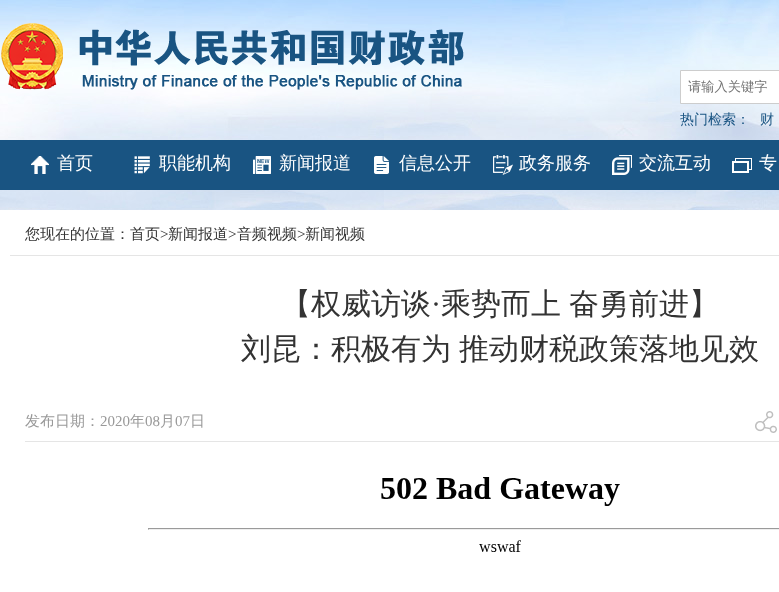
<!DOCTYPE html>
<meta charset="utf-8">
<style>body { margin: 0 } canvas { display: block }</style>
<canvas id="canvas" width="779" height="592"></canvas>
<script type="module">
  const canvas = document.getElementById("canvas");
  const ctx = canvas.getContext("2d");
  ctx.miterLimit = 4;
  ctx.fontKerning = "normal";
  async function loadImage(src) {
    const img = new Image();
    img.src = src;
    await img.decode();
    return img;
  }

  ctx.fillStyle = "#ffffff";
  ctx.fillRect(0, 0, 779, 592);
  ctx.drawImage(await loadImage("img1.png"), 0, 0, 779, 210);
  ctx.drawImage(await loadImage("img2.png"), 1, 23, 463, 67);
  ctx.beginPath();
  ctx.rect(680.5, 70.5, 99, 33);
  ctx.fill();
  ctx.strokeStyle = "#cdcdcd";
  ctx.stroke();
  ctx.font = "500 13.25px WenQuanYi Zen Hei";
  ctx.fillStyle = "#757575";
  ctx.fillText("请输入关键字", 688, 91);
  ctx.font = "500 14px WenQuanYi Zen Hei";
  ctx.fillStyle = "#195482";
  ctx.fillText("热门检索：", 680, 124);
  ctx.fillText("财", 760, 124);
  ctx.fillRect(0, 140, 779, 50);
  ctx.drawImage(await loadImage("img3.png"), 31, 156, 18, 18);
  ctx.font = "500 18px WenQuanYi Zen Hei";
  ctx.fillStyle = "#ffffff";
  ctx.fillText("首页", 57, 169);
  ctx.drawImage(await loadImage("img4.png"), 134, 156, 16, 18);
  ctx.fillText("职能机构", 159, 169);
  ctx.drawImage(await loadImage("img5.png"), 253, 156, 18, 18);
  ctx.fillText("新闻报道", 279, 169);
  ctx.drawImage(await loadImage("img6.png"), 374, 156, 15, 18);
  ctx.fillText("信息公开", 399, 169);
  ctx.drawImage(await loadImage("img7.png"), 493, 155, 20, 20);
  ctx.fillText("政务服务", 519, 169);
  ctx.drawImage(await loadImage("img8.png"), 612, 155, 20, 20);
  ctx.fillText("交流互动", 639, 169);
  ctx.drawImage(await loadImage("img9.png"), 732, 158, 20, 15);
  ctx.fillText("专", 759, 169);
  ctx.fillStyle = "#e5e5e5";
  ctx.fillRect(10, 255, 769, 1);
  ctx.font = "500 15px WenQuanYi Zen Hei";
  ctx.fillStyle = "#333333";
  ctx.fillText("您现在的位置：首页", 25, 239);
  ctx.font = "15px Liberation Serif";
  ctx.fillText(">", 160, 239);
  ctx.font = "500 15px WenQuanYi Zen Hei";
  ctx.fillText("新闻报道", 168, 239);
  ctx.font = "15px Liberation Serif";
  ctx.fillText(">", 228, 239);
  ctx.font = "500 15px WenQuanYi Zen Hei";
  ctx.fillText("音频视频", 237, 239);
  ctx.font = "15px Liberation Serif";
  ctx.fillText(">", 297, 239);
  ctx.font = "500 15px WenQuanYi Zen Hei";
  ctx.fillText("新闻视频", 305, 239);
  ctx.font = "500 30px WenQuanYi Zen Hei";
  ctx.fillText("【权威访谈", 281, 314);
  ctx.font = "30px Liberation Serif";
  ctx.fillText("·", 431, 314);
  ctx.wordSpacing = "-1px";
  ctx.font = "500 30px WenQuanYi Zen Hei";
  ctx.fillText("乘势而上 奋勇前进】", 441, 314);
  ctx.fillText("刘昆：积极有为 推动财税政策落地见效", 241, 359);
  ctx.fillStyle = "#e5e5e5";
  ctx.fillRect(25, 441, 754, 1);
  ctx.wordSpacing = "0px";
  ctx.font = "500 15px WenQuanYi Zen Hei";
  ctx.fillStyle = "#999999";
  ctx.fillText("发布日期：", 25, 426);
  ctx.font = "15px Liberation Serif";
  ctx.fillText("2020", 100, 426);
  ctx.font = "500 15px WenQuanYi Zen Hei";
  ctx.fillText("年", 130, 426);
  ctx.font = "15px Liberation Serif";
  ctx.fillText("08", 145, 426);
  ctx.font = "500 15px WenQuanYi Zen Hei";
  ctx.fillText("月", 160, 426);
  ctx.font = "15px Liberation Serif";
  ctx.fillText("07", 175, 426);
  ctx.font = "500 15px WenQuanYi Zen Hei";
  ctx.fillText("日", 190, 426);
  ctx.drawImage(await loadImage("img10.png"), 755, 411, 22, 22);
  ctx.drawImage(await loadImage("img11.png"), 148, 477, 631, 75);
</script>
